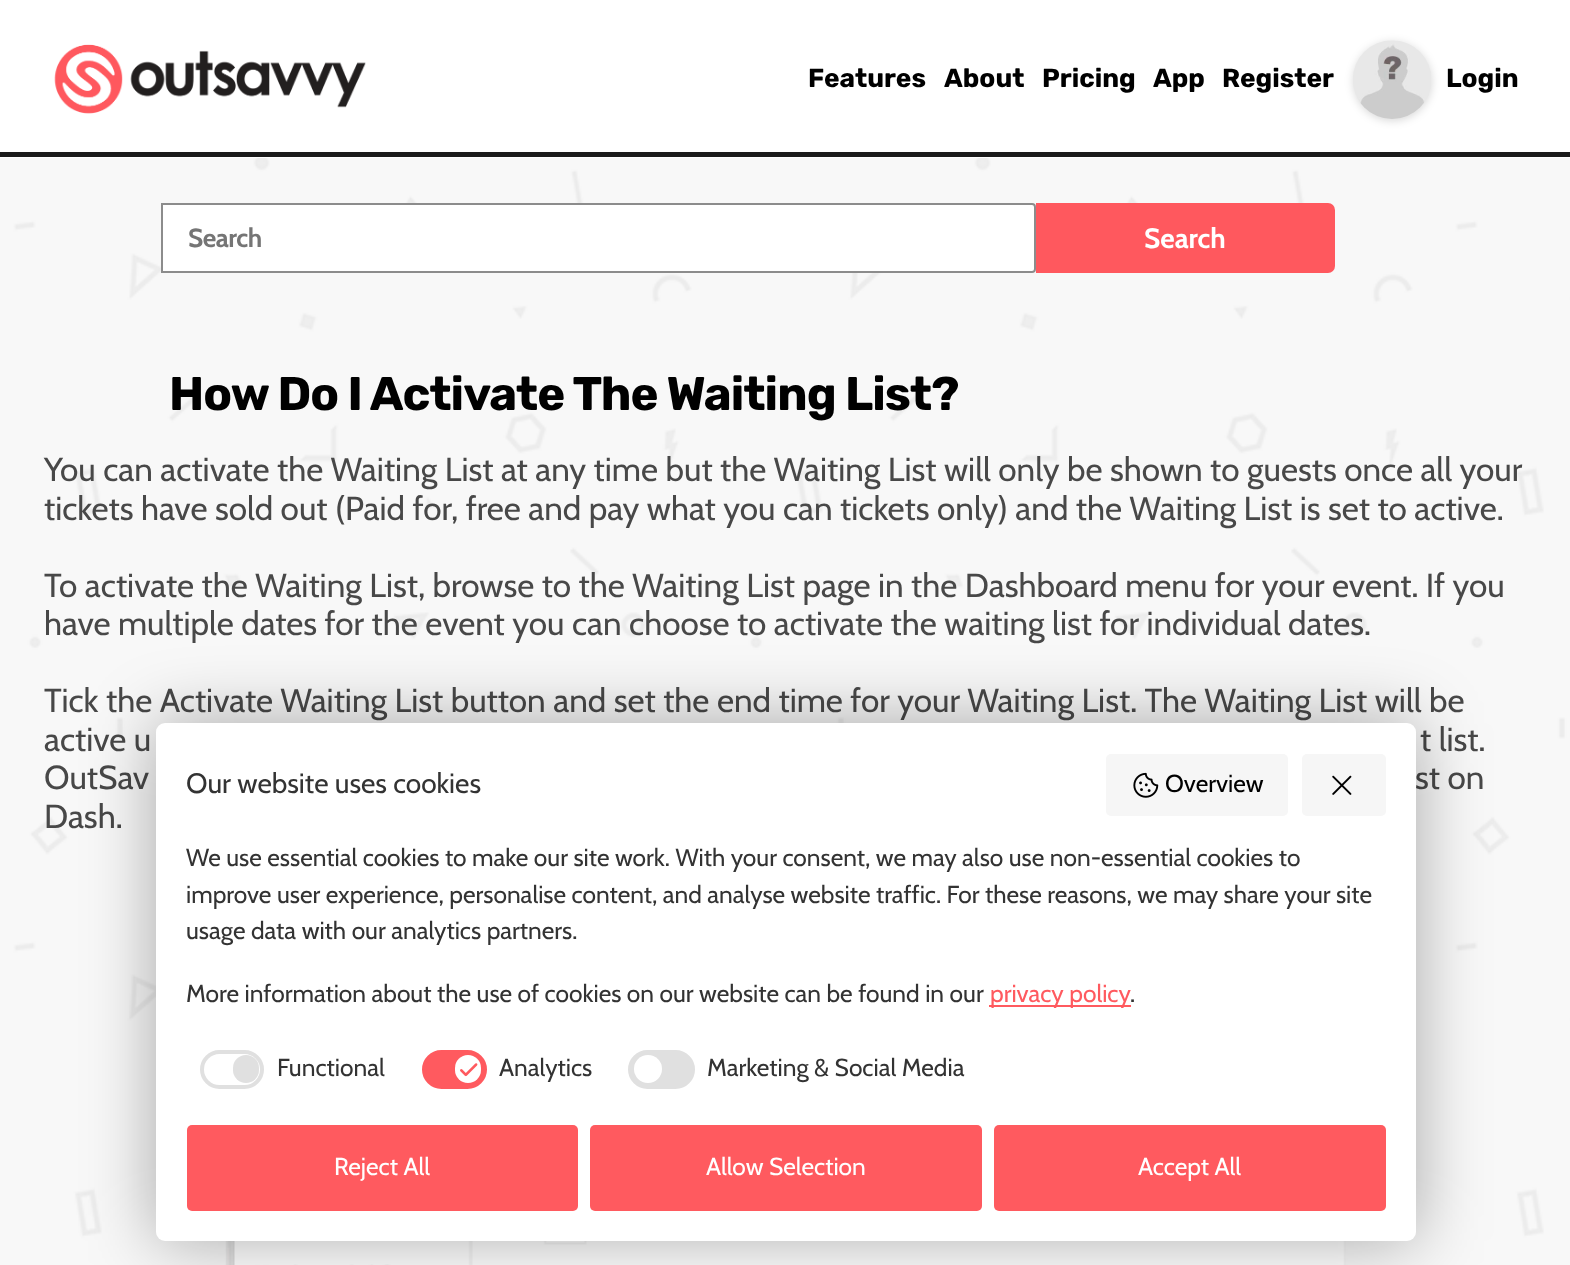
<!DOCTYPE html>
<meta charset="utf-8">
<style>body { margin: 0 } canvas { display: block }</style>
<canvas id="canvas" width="1570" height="1265"></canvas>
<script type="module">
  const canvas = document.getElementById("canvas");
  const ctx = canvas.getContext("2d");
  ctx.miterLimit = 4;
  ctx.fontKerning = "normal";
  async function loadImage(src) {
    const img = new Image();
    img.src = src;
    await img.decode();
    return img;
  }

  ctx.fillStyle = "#ffffff";
  ctx.fillRect(0, 0, 1570, 1265);
  ctx.fillStyle = "#1a1a1a";
  ctx.fillRect(0, 152, 1570, 5);
  ctx.drawImage(await loadImage("img1.png"), 54, 44, 312, 70);
  ctx.font = "bold 26.25px Rubik";
  ctx.fillStyle = "#000000";
  ctx.fillText("Features", 808, 87);
  ctx.fillText("About", 944, 87);
  ctx.fillText("Pricing", 1042, 87);
  ctx.fillText("App", 1153, 87);
  ctx.fillText("Register", 1222, 87);
  ctx.fillStyle = "rgba(0, 0, 0, 0.15)";
  ctx.filter = "blur(4.5px)";
  ctx.beginPath();
  ctx.roundRect(1353, 42, 79, 79, 39.5);
  ctx.fill();
  ctx.filter = "none";
  ctx.drawImage(await loadImage("img2.png"), 1353, 40, 78, 79);
  ctx.fillStyle = "#000000";
  ctx.fillText("Login", 1446, 87);
  ctx.drawImage(await loadImage("img3.png"), 0, 158, 1570, 1107);
  ctx.fillStyle = "#ffffff";
  ctx.beginPath();
  ctx.roundRect(162, 204, 873, 68, [0, 3, 3, 0]);
  ctx.fill();
  ctx.strokeStyle = "#8c8c8c";
  ctx.lineWidth = 2;
  ctx.stroke();
  ctx.letterSpacing = "-0.5px";
  ctx.font = "bold 26.25px Cabin";
  ctx.fillStyle = "#757575";
  ctx.fillText("Search", 188, 247);
  ctx.fillStyle = "#ff585e";
  ctx.beginPath();
  ctx.roundRect(1036, 203, 299, 70, [0, 7, 7, 0]);
  ctx.fill();
  ctx.letterSpacing = "0px";
  ctx.font = "bold 28px Cabin";
  ctx.fillStyle = "#ffffff";
  ctx.fillText("Search", 1144, 248);
  ctx.letterSpacing = "-0.9px";
  ctx.font = "bold 47.25px Rubik";
  ctx.fillStyle = "#000000";
  ctx.fillText("How Do I Activate The Waiting List?", 169, 410);
  ctx.letterSpacing = "0px";
  ctx.font = "33.25px Cabin";
  ctx.fillStyle = "#484848";
  ctx.fillText("You can activate the Waiting List at any time but the Waiting List will only be shown to guests once all your", 44, 481);
  ctx.fillText("tickets have sold out (Paid for, free and pay what you can tickets only) and the Waiting List is set to active.", 44, 520);
  ctx.fillText("To activate the Waiting List, browse to the Waiting List page in the Dashboard menu for your event. If you", 44, 597);
  ctx.fillText("have multiple dates for the event you can choose to activate the waiting list for individual dates.", 44, 635);
  ctx.fillText("Tick the Activate Waiting List button and set the end time for your Waiting List. The Waiting List will be", 44, 712);
  ctx.fillText("active u", 44, 751);
  ctx.fillText("t list.", 1420, 751);
  ctx.fillText("OutSav", 44, 789);
  ctx.fillText("st on", 1415, 789);
  ctx.fillText("Dash.", 44, 828);
  ctx.drawImage(await loadImage("img4.png"), 225, 1241, 1121, 24);
  ctx.fillStyle = "rgba(0, 0, 0, 0.33)";
  ctx.filter = "blur(35px)";
  ctx.beginPath();
  ctx.roundRect(156, 723, 1260, 518, 9);
  ctx.fill();
  ctx.filter = "none";
  ctx.fillStyle = "#ffffff";
  ctx.beginPath();
  ctx.roundRect(156, 723, 1260, 518, 9);
  ctx.fill();
  ctx.font = "28px Cabin";
  ctx.fillStyle = "#333333";
  ctx.fillText("Our website uses cookies", 186, 793);
  ctx.fillStyle = "#f6f6f6";
  ctx.beginPath();
  ctx.roundRect(1106, 754, 182, 62, 5);
  ctx.fill();
  ctx.drawImage(await loadImage("img5.png"), 1133, 772, 26, 26);
  ctx.font = "24.5px Cabin";
  ctx.fillStyle = "#000000";
  ctx.fillText("Overview", 1165, 792);
  ctx.fillStyle = "#f6f6f6";
  ctx.beginPath();
  ctx.roundRect(1302, 754, 84, 62, 5);
  ctx.fill();
  ctx.drawImage(await loadImage("img6.png"), 1332, 775, 20, 20);
  ctx.fillStyle = "#333333";
  ctx.fillText("We use essential cookies to make our site work. With your consent, we may also use non-essential cookies to", 186, 866);
  ctx.fillText("improve user experience, personalise content, and analyse website traffic. For these reasons, we may share your site", 186, 903);
  ctx.fillText("usage data with our analytics partners.", 186, 939);
  ctx.fillText("More information about the use of cookies on our website can be found in our", 186, 1002);
  ctx.fillStyle = "#ff5a5f";
  ctx.fillRect(989, 1005, 142, 2);
  ctx.fillText("privacy policy", 990, 1002);
  ctx.fillStyle = "#333333";
  ctx.fillText(".", 1130, 1002);
  ctx.beginPath();
  ctx.roundRect(202, 1052, 60, 35, 17.5);
  ctx.strokeStyle = "#e0e0e0";
  ctx.lineWidth = 4;
  ctx.stroke();
  ctx.fillStyle = "#e0e0e0";
  ctx.beginPath();
  ctx.roundRect(233, 1055, 26, 28, 13);
  ctx.fill();
  ctx.fillStyle = "#333333";
  ctx.fillText("Functional", 277, 1076);
  ctx.fillStyle = "#ff5a5f";
  ctx.beginPath();
  ctx.roundRect(424, 1052, 61, 35, 17.5);
  ctx.fill();
  ctx.strokeStyle = "#ff5a5f";
  ctx.stroke();
  ctx.fillStyle = "#ffffff";
  ctx.beginPath();
  ctx.roundRect(455, 1055, 26, 28, 13);
  ctx.fill();
  ctx.drawImage(await loadImage("img7.png"), 460, 1063, 18, 14);
  ctx.fillStyle = "#333333";
  ctx.fillText("Analytics", 499, 1076);
  ctx.fillStyle = "#e0e0e0";
  ctx.beginPath();
  ctx.roundRect(630, 1052, 63, 35, 17.5);
  ctx.fill();
  ctx.strokeStyle = "#e0e0e0";
  ctx.stroke();
  ctx.fillStyle = "#ffffff";
  ctx.beginPath();
  ctx.arc(648, 1069, 14, 0, Math.PI * 2);
  ctx.fill();
  ctx.fillStyle = "#333333";
  ctx.fillText("Marketing & Social Media", 707, 1076);
  ctx.fillStyle = "#ff5a5f";
  ctx.beginPath();
  ctx.roundRect(187, 1125, 391, 86, 5);
  ctx.fill();
  ctx.fillStyle = "#ffffff";
  ctx.fillText("Reject All", 334, 1175);
  ctx.fillStyle = "#ff5a5f";
  ctx.beginPath();
  ctx.roundRect(590, 1125, 392, 86, 5);
  ctx.fill();
  ctx.fillStyle = "#ffffff";
  ctx.fillText("Allow Selection", 706, 1175);
  ctx.fillStyle = "#ff5a5f";
  ctx.beginPath();
  ctx.roundRect(994, 1125, 392, 86, 5);
  ctx.fill();
  ctx.fillStyle = "#ffffff";
  ctx.fillText("Accept All", 1138, 1175);
</script>
